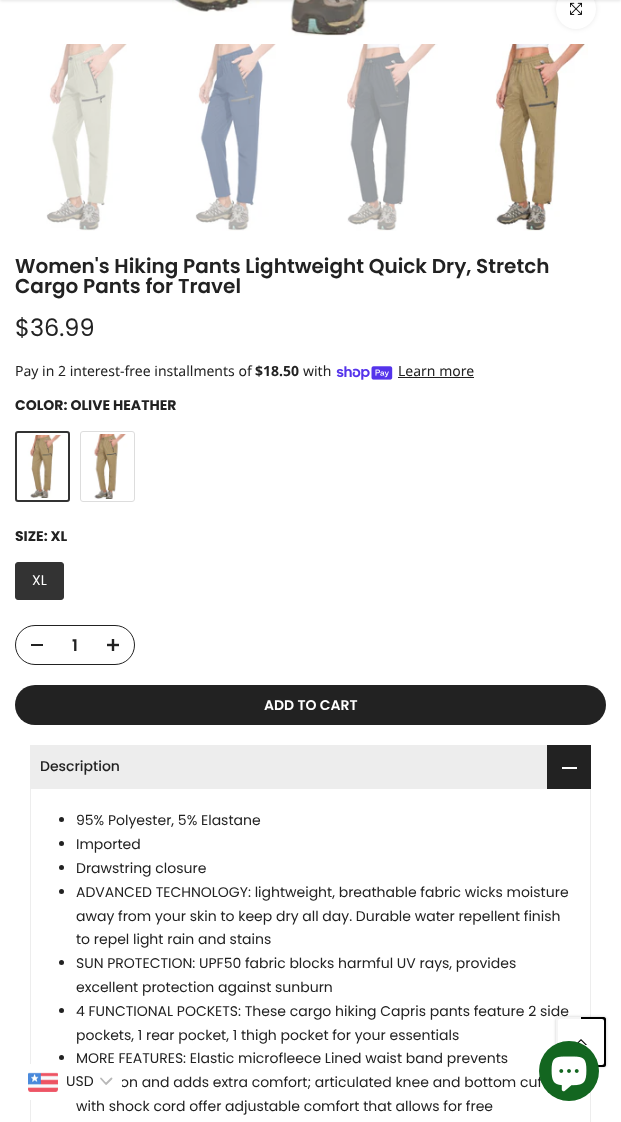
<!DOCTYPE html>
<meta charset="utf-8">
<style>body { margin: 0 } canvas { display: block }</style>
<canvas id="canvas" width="621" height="1122"></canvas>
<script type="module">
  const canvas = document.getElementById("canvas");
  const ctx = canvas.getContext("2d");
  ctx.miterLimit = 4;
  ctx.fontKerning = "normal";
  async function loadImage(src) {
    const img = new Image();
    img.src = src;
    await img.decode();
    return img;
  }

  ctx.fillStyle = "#ffffff";
  ctx.fillRect(0, 0, 621, 1122);
  ctx.drawImage(await loadImage("img1.png"), 172, 0, 198, 36);
  ctx.fillStyle = "rgba(0, 0, 0, 0.09)";
  ctx.filter = "blur(2.5px)";
  ctx.beginPath();
  ctx.roundRect(556, -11, 40, 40, 20);
  ctx.fill();
  ctx.filter = "none";
  ctx.fillStyle = "#ffffff";
  ctx.beginPath();
  ctx.arc(576, 9, 20, 0, Math.PI * 2);
  ctx.fill();
  ctx.drawImage(await loadImage("img2.png"), 570, 2, 12, 13);
  ctx.fillStyle = "rgba(0, 0, 0, 0.1)";
  ctx.filter = "blur(1.5px)";
  ctx.beginPath();
  ctx.rect(0, -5, 621, 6);
  ctx.fill();
  ctx.filter = "none";
  ctx.drawImage(await loadImage("img3.png"), 46, 44, 81, 187);
  ctx.drawImage(await loadImage("img4.png"), 195, 44, 81, 187);
  ctx.drawImage(await loadImage("img5.png"), 347, 44, 91, 187);
  ctx.drawImage(await loadImage("img6.png"), 495, 44, 93, 187);
  ctx.font = "600 20px Poppins";
  ctx.fillStyle = "#222222";
  ctx.fillText("Women's Hiking Pants Lightweight Quick Dry, Stretch", 15, 273);
  ctx.fillText("Cargo Pants for Travel", 15, 293);
  ctx.font = "24px Poppins";
  ctx.fillText("$36.99", 15, 336);
  ctx.font = "14px Noto Sans";
  ctx.fillText("Pay in 2 interest-free installments of", 15, 376);
  ctx.font = "bold 14px Noto Sans";
  ctx.fillText("$18.50", 255, 376);
  ctx.font = "14px Noto Sans";
  ctx.fillText("with", 303, 376);
  ctx.drawImage(await loadImage("img7.png"), 336, 366, 57, 14);
  ctx.fillText("Learn more", 398, 376);
  ctx.fillRect(398, 377, 76, 1);
  ctx.font = "bold 14px Poppins";
  ctx.fillText("COLOR: OLIVE HEATHER", 15, 410);
  ctx.drawImage(await loadImage("img8.png"), 17, 433, 51, 67);
  ctx.beginPath();
  ctx.rect(18, 434, 49, 65);
  ctx.strokeStyle = "#ffffff";
  ctx.lineWidth = 2;
  ctx.stroke();
  ctx.beginPath();
  ctx.roundRect(16, 432, 53, 69, 2);
  ctx.strokeStyle = "#333333";
  ctx.stroke();
  ctx.drawImage(await loadImage("img9.png"), 81, 432, 53, 69);
  ctx.beginPath();
  ctx.roundRect(82, 433, 51, 67, 1);
  ctx.strokeStyle = "#ffffff";
  ctx.stroke();
  ctx.beginPath();
  ctx.roundRect(80.5, 431.5, 54, 70, 2.5);
  ctx.strokeStyle = "#dddddd";
  ctx.lineWidth = 1;
  ctx.stroke();
  ctx.fillText("SIZE: XL", 15, 541);
  ctx.fillStyle = "#333333";
  ctx.beginPath();
  ctx.roundRect(15.5, 562.5, 48, 37, 2.5);
  ctx.fill();
  ctx.strokeStyle = "#333333";
  ctx.stroke();
  ctx.font = "14px Poppins";
  ctx.fillStyle = "#ffffff";
  ctx.fillText("XL", 32, 585);
  ctx.beginPath();
  ctx.roundRect(15.5, 625.5, 119, 39, 19.5);
  ctx.strokeStyle = "#222222";
  ctx.stroke();
  ctx.fillStyle = "#222222";
  ctx.fillRect(31, 644, 12, 2);
  ctx.font = "600 16px Poppins";
  ctx.fillText("1", 72, 651);
  ctx.drawImage(await loadImage("img10.png"), 107, 639, 12, 12);
  ctx.beginPath();
  ctx.roundRect(15, 685, 591, 40, 20);
  ctx.fill();
  ctx.font = "600 14px Poppins";
  ctx.fillStyle = "#ffffff";
  ctx.fillText("ADD TO CART", 264, 710);
  ctx.fillStyle = "#ededed";
  ctx.fillRect(30, 745, 517, 44);
  ctx.font = "500 14px Poppins";
  ctx.fillStyle = "#222222";
  ctx.fillText("Description", 40, 771);
  ctx.fillRect(547, 745, 44, 44);
  ctx.fillStyle = "#ffffff";
  ctx.fillRect(562, 767, 15, 2);
  ctx.fillStyle = "#ededed";
  ctx.beginPath();
  ctx.moveTo(591, 789);
  ctx.lineTo(591, 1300);
  ctx.lineTo(590, 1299);
  ctx.lineTo(590, 789);
  ctx.closePath();
  ctx.fill();
  ctx.beginPath();
  ctx.moveTo(30, 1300);
  ctx.lineTo(30, 789);
  ctx.lineTo(31, 789);
  ctx.lineTo(31, 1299);
  ctx.closePath();
  ctx.fill();
  ctx.fillStyle = "#222222";
  ctx.beginPath();
  ctx.arc(61.5, 819.5, 2.5, 0, Math.PI * 2);
  ctx.fill();
  ctx.font = "14px Poppins";
  ctx.fillText("95% Polyester, 5% Elastane", 76, 825);
  ctx.beginPath();
  ctx.arc(61.5, 843.5, 2.5, 0, Math.PI * 2);
  ctx.fill();
  ctx.fillText("Imported", 76, 849);
  ctx.beginPath();
  ctx.arc(61.5, 867.5, 2.5, 0, Math.PI * 2);
  ctx.fill();
  ctx.fillText("Drawstring closure", 76, 873);
  ctx.beginPath();
  ctx.arc(61.5, 891.5, 2.5, 0, Math.PI * 2);
  ctx.fill();
  ctx.fillText("ADVANCED TECHNOLOGY: lightweight, breathable fabric wicks moisture", 76, 897);
  ctx.fillText("away from your skin to keep dry all day. Durable water repellent finish", 76, 921);
  ctx.fillText("to repel light rain and stains", 76, 944);
  ctx.beginPath();
  ctx.arc(61.5, 962.5, 2.5, 0, Math.PI * 2);
  ctx.fill();
  ctx.fillText("SUN PROTECTION: UPF50 fabric blocks harmful UV rays, provides", 76, 968);
  ctx.fillText("excellent protection against sunburn", 76, 992);
  ctx.beginPath();
  ctx.arc(61.5, 1010.5, 2.5, 0, Math.PI * 2);
  ctx.fill();
  ctx.fillText("4 FUNCTIONAL POCKETS: These cargo hiking Capris pants feature 2 side", 76, 1016);
  ctx.fillText("pockets, 1 rear pocket, 1 thigh pocket for your essentials", 76, 1040);
  ctx.beginPath();
  ctx.arc(61.5, 1057.5, 2.5, 0, Math.PI * 2);
  ctx.fill();
  ctx.fillText("MORE FEATURES: Elastic microfleece Lined waist band prevents", 76, 1063);
  ctx.fillText("on and adds extra comfort; articulated knee and bottom cuf", 120, 1087);
  ctx.fillText("with shock cord offer adjustable comfort that allows for free", 76, 1111);
  ctx.fillStyle = "rgba(0, 0, 0, 0.2)";
  ctx.filter = "blur(1.5px)";
  ctx.beginPath();
  ctx.roundRect(556, 1017, 50, 50, 3);
  ctx.fill();
  ctx.filter = "none";
  ctx.fillStyle = "#000000";
  ctx.beginPath();
  ctx.moveTo(581, 1042);
  ctx.lineTo(572, 1067);
  ctx.lineTo(604, 1067);
  ctx.bezierCurveTo(605, 1067, 606, 1066, 606, 1065);
  ctx.lineTo(606, 1019);
  ctx.bezierCurveTo(606, 1018, 605, 1017, 604, 1017);
  ctx.lineTo(581, 1017);
  ctx.closePath();
  ctx.fill();
  ctx.fillStyle = "#f5f5f5";
  ctx.beginPath();
  ctx.moveTo(581, 1042);
  ctx.lineTo(581, 1017);
  ctx.lineTo(558, 1017);
  ctx.bezierCurveTo(557, 1017, 556, 1018, 556, 1019);
  ctx.lineTo(556, 1065);
  ctx.bezierCurveTo(556, 1066, 557, 1067, 558, 1067);
  ctx.lineTo(572, 1067);
  ctx.closePath();
  ctx.fill();
  ctx.fillStyle = "#ffffff";
  ctx.beginPath();
  ctx.roundRect(558, 1019, 46, 46, 2);
  ctx.fill();
  ctx.drawImage(await loadImage("img11.png"), 577, 1039, 10, 6);
  ctx.beginPath();
  ctx.roundRect(20, 1064, 102, 36, 5);
  ctx.fill();
  ctx.drawImage(await loadImage("img12.png"), 28, 1072, 30, 20);
  ctx.fillStyle = "#222222";
  ctx.fillText("USD", 66, 1086);
  ctx.beginPath();
  ctx.moveTo(101, 1078.5);
  ctx.lineTo(106, 1084);
  ctx.lineTo(111.5, 1078.5);
  ctx.strokeStyle = "#b7b7b7";
  ctx.lineWidth = 1.8;
  ctx.lineCap = "round";
  ctx.lineJoin = "round";
  ctx.stroke();
  ctx.fillStyle = "#136620";
  ctx.beginPath();
  ctx.arc(569, 1071, 30, 0, Math.PI * 2);
  ctx.fill();
  ctx.drawImage(await loadImage("img13.png"), 551, 1056, 36, 36);
</script>
